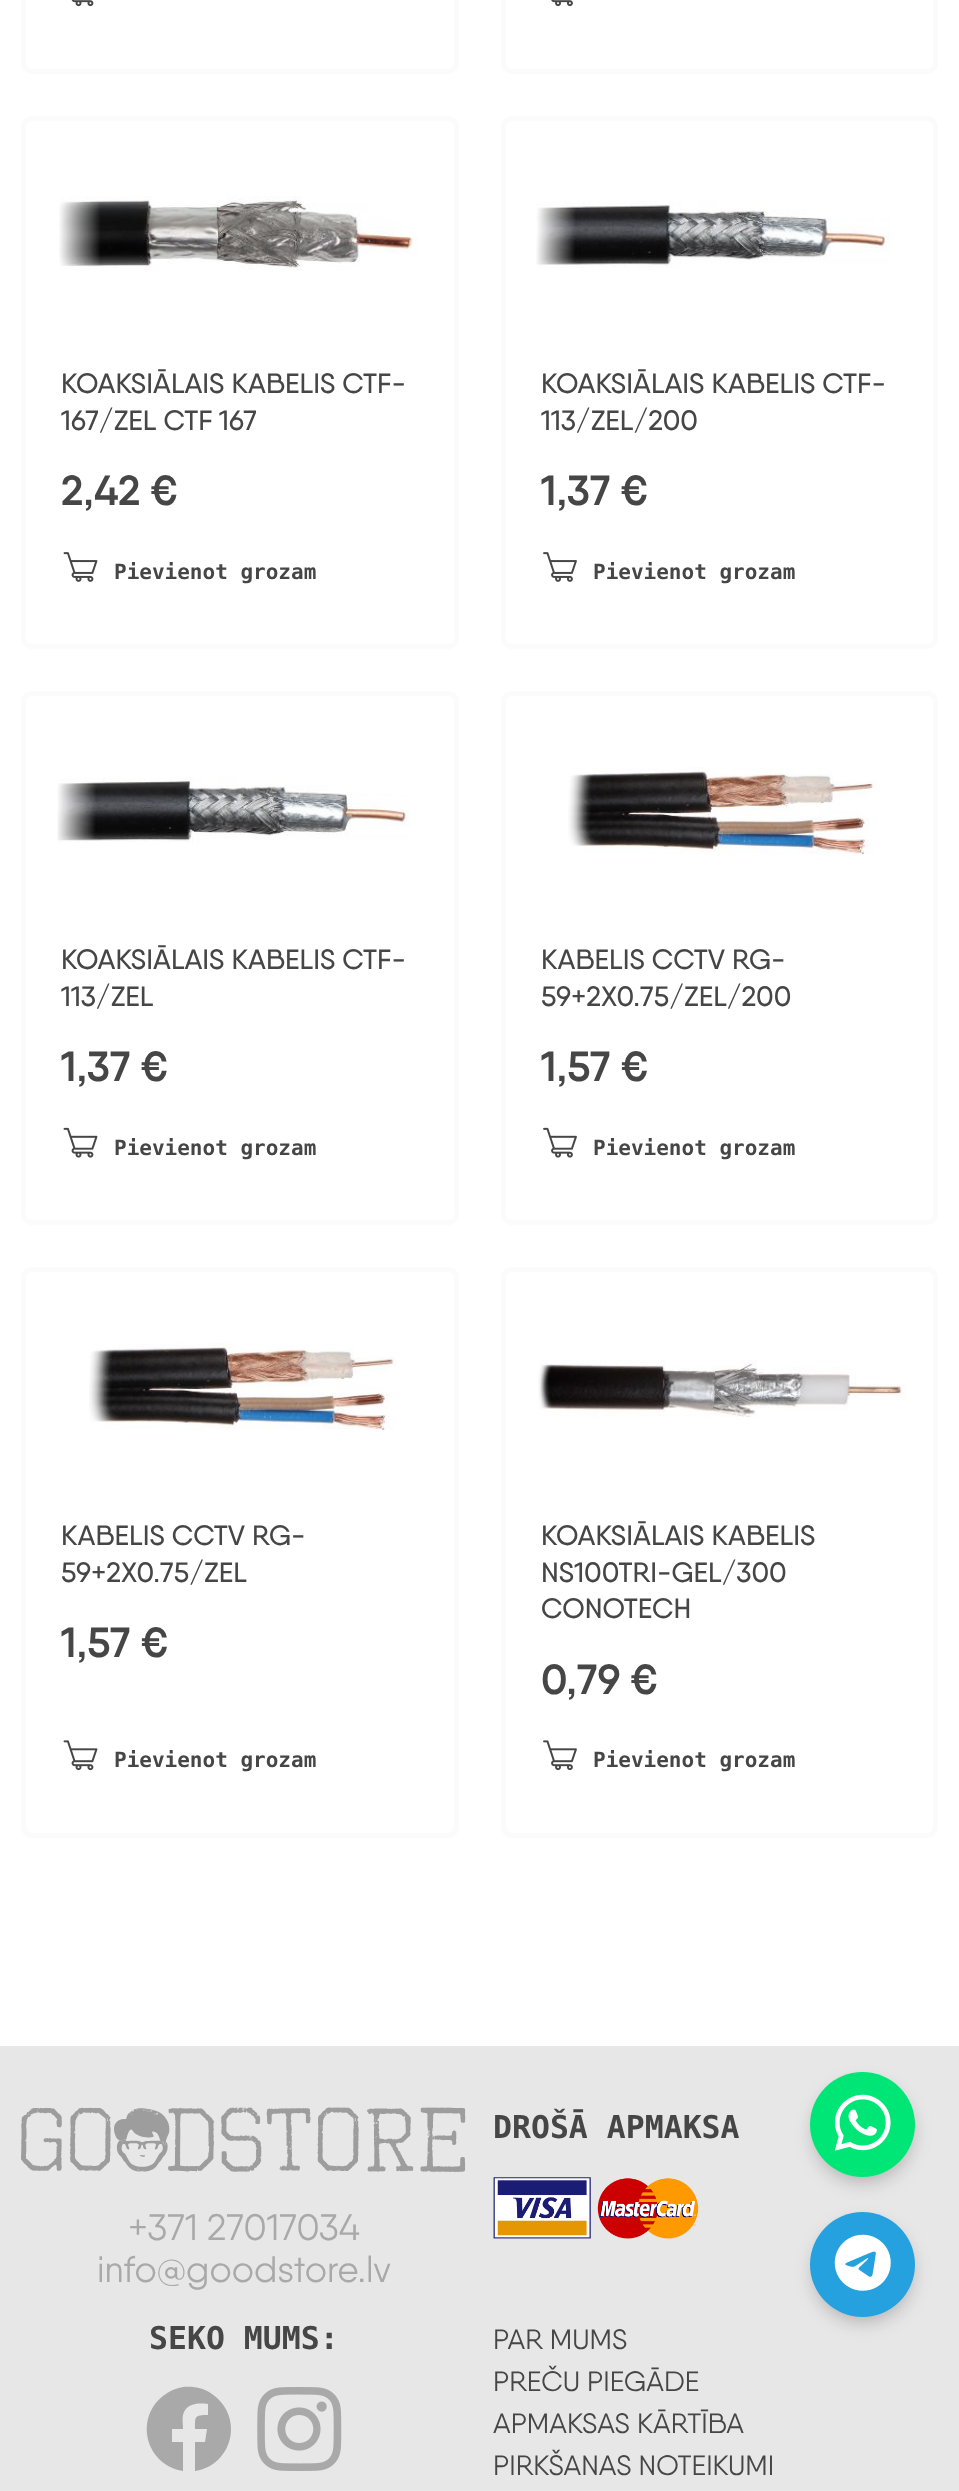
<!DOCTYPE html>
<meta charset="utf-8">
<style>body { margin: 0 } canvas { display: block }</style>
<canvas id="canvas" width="959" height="2491"></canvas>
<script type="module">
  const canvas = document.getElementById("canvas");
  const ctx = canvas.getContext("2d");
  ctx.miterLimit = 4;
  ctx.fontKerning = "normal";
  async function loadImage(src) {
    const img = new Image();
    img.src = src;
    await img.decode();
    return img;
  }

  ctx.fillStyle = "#ffffff";
  ctx.fillRect(0, 0, 959, 2491);
  ctx.beginPath();
  ctx.roundRect(23.5, -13.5, 433, 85, 8.5);
  ctx.strokeStyle = "#fbfbfb";
  ctx.lineWidth = 5;
  ctx.stroke();
  ctx.drawImage(await loadImage("img1.png"), 71, 0, 23, 7);
  ctx.beginPath();
  ctx.roundRect(503.5, -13.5, 432, 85, 8.5);
  ctx.stroke();
  ctx.drawImage(await loadImage("img2.png"), 551, 0, 22, 7);
  ctx.beginPath();
  ctx.roundRect(23.5, 118.5, 433, 528, 8.5);
  ctx.stroke();
  ctx.drawImage(await loadImage("img3.png"), 59, 196, 359, 74);
  ctx.font = "500 28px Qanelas";
  ctx.fillStyle = "#464646";
  ctx.fillText("KOAKSIĀLAIS KABELIS CTF-", 61, 393);
  ctx.fillText("167/ZEL CTF 167", 61, 430);
  ctx.font = "600 42px Qanelas";
  ctx.fillText("2,42 €", 61, 505);
  ctx.drawImage(await loadImage("img4.png"), 63, 552, 35, 30);
  ctx.font = "bold 21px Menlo";
  ctx.fillText("Pievienot grozam", 114, 579);
  ctx.beginPath();
  ctx.roundRect(503.5, 118.5, 432, 528, 8.5);
  ctx.stroke();
  ctx.drawImage(await loadImage("img5.png"), 536, 201, 354, 67);
  ctx.font = "500 28px Qanelas";
  ctx.fillText("KOAKSIĀLAIS KABELIS CTF-", 541, 393);
  ctx.fillText("113/ZEL/200", 541, 430);
  ctx.font = "600 42px Qanelas";
  ctx.fillText("1,37 €", 541, 505);
  ctx.drawImage(await loadImage("img6.png"), 543, 552, 34, 30);
  ctx.font = "bold 21px Menlo";
  ctx.fillText("Pievienot grozam", 593, 579);
  ctx.beginPath();
  ctx.roundRect(23.5, 693.5, 433, 529, 8.5);
  ctx.stroke();
  ctx.drawImage(await loadImage("img7.png"), 57, 777, 353, 66);
  ctx.font = "500 28px Qanelas";
  ctx.fillText("KOAKSIĀLAIS KABELIS CTF-", 61, 969);
  ctx.fillText("113/ZEL", 61, 1006);
  ctx.font = "600 42px Qanelas";
  ctx.fillText("1,37 €", 61, 1081);
  ctx.drawImage(await loadImage("img8.png"), 63, 1127, 35, 31);
  ctx.font = "bold 21px Menlo";
  ctx.fillText("Pievienot grozam", 114, 1155);
  ctx.beginPath();
  ctx.roundRect(503.5, 693.5, 432, 529, 8.5);
  ctx.stroke();
  ctx.drawImage(await loadImage("img9.png"), 568, 767, 309, 87);
  ctx.font = "500 28px Qanelas";
  ctx.fillText("KABELIS CCTV RG-", 541, 969);
  ctx.fillText("59+2X0.75/ZEL/200", 541, 1006);
  ctx.font = "600 42px Qanelas";
  ctx.fillText("1,57 €", 541, 1081);
  ctx.drawImage(await loadImage("img10.png"), 543, 1127, 34, 31);
  ctx.font = "bold 21px Menlo";
  ctx.fillText("Pievienot grozam", 593, 1155);
  ctx.beginPath();
  ctx.roundRect(23.5, 1269.5, 433, 566, 8.5);
  ctx.stroke();
  ctx.drawImage(await loadImage("img11.png"), 89, 1343, 308, 87);
  ctx.font = "500 28px Qanelas";
  ctx.fillText("KABELIS CCTV RG-", 61, 1545);
  ctx.fillText("59+2X0.75/ZEL", 61, 1582);
  ctx.font = "600 42px Qanelas";
  ctx.fillText("1,57 €", 61, 1657);
  ctx.drawImage(await loadImage("img12.png"), 63, 1740, 35, 31);
  ctx.font = "bold 21px Menlo";
  ctx.fillText("Pievienot grozam", 114, 1767);
  ctx.beginPath();
  ctx.roundRect(503.5, 1269.5, 432, 566, 8.5);
  ctx.stroke();
  ctx.drawImage(await loadImage("img13.png"), 538, 1360, 369, 57);
  ctx.font = "500 28px Qanelas";
  ctx.fillText("KOAKSIĀLAIS KABELIS", 541, 1545);
  ctx.fillText("NS100TRI-GEL/300", 541, 1582);
  ctx.fillText("CONOTECH", 541, 1618);
  ctx.font = "600 42px Qanelas";
  ctx.fillText("0,79 €", 541, 1694);
  ctx.drawImage(await loadImage("img14.png"), 543, 1740, 34, 31);
  ctx.font = "bold 21px Menlo";
  ctx.fillText("Pievienot grozam", 593, 1767);
  ctx.fillStyle = "#e7e7e7";
  ctx.fillRect(0, 2046, 959, 445);
  ctx.font = "bold 31.5px Menlo";
  ctx.fillStyle = "#464646";
  ctx.fillText("DROŠĀ APMAKSA", 493, 2138);
  ctx.drawImage(await loadImage("img15.png"), 493, 2177, 206, 62);
  ctx.drawImage(await loadImage("img16.png"), 21, 2107, 445, 65);
  ctx.font = "36.75px Qanelas";
  ctx.fillStyle = "#a9a9a9";
  ctx.fillText("+371 27017034", 128, 2240);
  ctx.fillText("info@goodstore.lv", 97, 2282);
  ctx.font = "bold 31.5px Menlo";
  ctx.fillStyle = "#464646";
  ctx.fillText("SEKO MUMS:", 149, 2349);
  ctx.fillStyle = "#a9a9a9";
  ctx.beginPath();
  ctx.moveTo(231, 2429);
  ctx.bezierCurveTo(231, 2415, 224, 2402, 212, 2394);
  ctx.bezierCurveTo(204, 2388, 194, 2386, 183, 2387);
  ctx.bezierCurveTo(176, 2388, 169, 2391, 163, 2396);
  ctx.bezierCurveTo(134, 2419, 146, 2465, 183, 2471);
  ctx.lineTo(183, 2442);
  ctx.lineTo(172, 2442);
  ctx.lineTo(172, 2429);
  ctx.lineTo(183, 2429);
  ctx.bezierCurveTo(183, 2424, 182, 2419, 183, 2415);
  ctx.bezierCurveTo(186, 2403, 198, 2403, 208, 2404);
  ctx.lineTo(208, 2415);
  ctx.bezierCurveTo(194, 2415, 195, 2417, 195, 2429);
  ctx.lineTo(207, 2429);
  ctx.lineTo(205, 2442);
  ctx.lineTo(195, 2442);
  ctx.lineTo(195, 2471);
  ctx.bezierCurveTo(216, 2468, 231, 2450, 231, 2429);
  ctx.closePath();
  ctx.fill();
  ctx.drawImage(await loadImage("img17.png"), 257, 2387, 85, 84);
  ctx.font = "28px Qanelas";
  ctx.fillStyle = "#464646";
  ctx.fillText("PAR MUMS", 493, 2349);
  ctx.fillText("PREČU PIEGĀDE", 493, 2391);
  ctx.fillText("APMAKSAS KĀRTĪBA", 493, 2433);
  ctx.fillText("PIRKŠANAS NOTEIKUMI", 493, 2475);
  ctx.fillStyle = "rgba(0, 0, 0, 0.15)";
  ctx.filter = "blur(10.5px)";
  ctx.beginPath();
  ctx.roundRect(823, 2091, 80, 81, 40);
  ctx.fill();
  ctx.filter = "none";
  ctx.fillStyle = "rgba(0, 0, 0, 0.18)";
  ctx.filter = "blur(9.5px)";
  ctx.beginPath();
  ctx.roundRect(814, 2084, 98, 98, 49);
  ctx.fill();
  ctx.filter = "none";
  ctx.fillStyle = "#00e676";
  ctx.beginPath();
  ctx.arc(862.5, 2124.5, 52.5, 0, Math.PI * 2);
  ctx.fill();
  ctx.drawImage(await loadImage("img18.png"), 834, 2094, 57, 57);
  ctx.fillStyle = "rgba(0, 0, 0, 0.15)";
  ctx.filter = "blur(10.5px)";
  ctx.beginPath();
  ctx.roundRect(823, 2231, 80, 81, 40);
  ctx.fill();
  ctx.filter = "none";
  ctx.fillStyle = "rgba(0, 0, 0, 0.18)";
  ctx.filter = "blur(9.5px)";
  ctx.beginPath();
  ctx.roundRect(814, 2224, 98, 98, 49);
  ctx.fill();
  ctx.filter = "none";
  ctx.fillStyle = "#24a1de";
  ctx.beginPath();
  ctx.arc(862.5, 2264.5, 52.5, 0, Math.PI * 2);
  ctx.fill();
  ctx.drawImage(await loadImage("img19.png"), 834, 2234, 57, 57);
</script>
